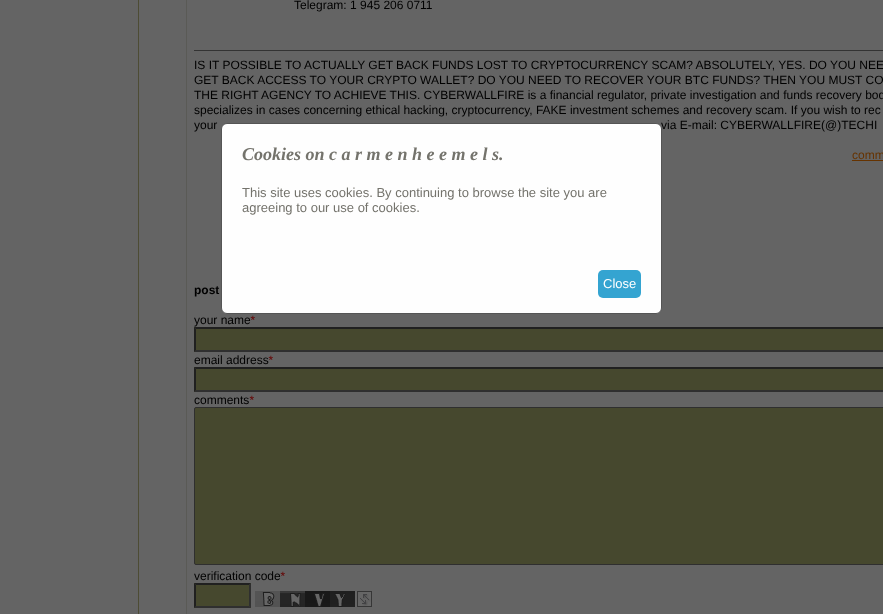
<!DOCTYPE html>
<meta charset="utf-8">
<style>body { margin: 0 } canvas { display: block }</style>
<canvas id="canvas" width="883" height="614"></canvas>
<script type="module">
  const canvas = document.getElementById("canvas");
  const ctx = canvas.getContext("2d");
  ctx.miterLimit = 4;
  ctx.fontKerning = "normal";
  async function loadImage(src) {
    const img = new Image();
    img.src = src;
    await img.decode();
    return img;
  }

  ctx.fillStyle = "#646464";
  ctx.fillRect(0, 0, 883, 614);
  ctx.fillStyle = "#4d4c34";
  ctx.fillRect(138, 0, 1, 614);
  ctx.strokeStyle = "#5a5a56";
  ctx.strokeRect(186.5, -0.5, 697, 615);
  ctx.font = "12px Liberation Sans";
  ctx.fillStyle = "#000000";
  ctx.fillText("Telegram: 1 945 206 0711", 294, 9);
  ctx.fillStyle = "#333333";
  ctx.fillRect(194, 50, 689, 1);
  ctx.fillStyle = "#000000";
  ctx.fillText("IS IT POSSIBLE TO ACTUALLY GET BACK FUNDS LOST TO CRYPTOCURRENCY SCAM? ABSOLUTELY, YES. DO YOU NEE", 194, 69);
  ctx.fillText("GET BACK ACCESS TO YOUR CRYPTO WALLET? DO YOU NEED TO RECOVER YOUR BTC FUNDS? THEN YOU MUST CO", 194, 84);
  ctx.fillText("THE RIGHT AGENCY TO ACHIEVE THIS. CYBERWALLFIRE is a financial regulator, private investigation and funds recovery bod", 194, 99);
  ctx.fillText("specializes in cases concerning ethical hacking, cryptocurrency, FAKE investment schemes and recovery scam. If you wish to rec", 194, 114);
  ctx.fillText("your", 194, 129);
  ctx.fillText("via E-mail: CYBERWALLFIRE(@)TECHI", 661, 129);
  ctx.fillStyle = "#663300";
  ctx.fillText("comm", 852, 159);
  ctx.fillRect(852, 160, 31, 1);
  ctx.font = "bold 12px Liberation Sans";
  ctx.fillStyle = "#000000";
  ctx.fillText("post", 194, 294);
  ctx.font = "12px Liberation Sans";
  ctx.fillText("your name", 194, 324);
  ctx.font = "italic 12px Liberation Sans";
  ctx.fillStyle = "#660000";
  ctx.fillText("*", 250, 324);
  ctx.fillStyle = "#46482e";
  ctx.fillRect(194, 327, 689, 25);
  ctx.fillStyle = "#202020";
  ctx.beginPath();
  ctx.moveTo(194, 327);
  ctx.lineTo(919, 327);
  ctx.lineTo(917, 329);
  ctx.lineTo(196, 329);
  ctx.closePath();
  ctx.fill();
  ctx.fillStyle = "#2f2f2f";
  ctx.beginPath();
  ctx.moveTo(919, 352);
  ctx.lineTo(194, 352);
  ctx.lineTo(196, 350);
  ctx.lineTo(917, 350);
  ctx.closePath();
  ctx.fill();
  ctx.fillStyle = "#202020";
  ctx.beginPath();
  ctx.moveTo(194, 352);
  ctx.lineTo(194, 327);
  ctx.lineTo(196, 329);
  ctx.lineTo(196, 350);
  ctx.closePath();
  ctx.fill();
  ctx.font = "12px Liberation Sans";
  ctx.fillStyle = "#000000";
  ctx.fillText("email address", 194, 364);
  ctx.font = "italic 12px Liberation Sans";
  ctx.fillStyle = "#660000";
  ctx.fillText("*", 268, 364);
  ctx.fillStyle = "#46482e";
  ctx.fillRect(194, 367, 689, 25);
  ctx.fillStyle = "#202020";
  ctx.beginPath();
  ctx.moveTo(194, 367);
  ctx.lineTo(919, 367);
  ctx.lineTo(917, 369);
  ctx.lineTo(196, 369);
  ctx.closePath();
  ctx.fill();
  ctx.fillStyle = "#2f2f2f";
  ctx.beginPath();
  ctx.moveTo(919, 392);
  ctx.lineTo(194, 392);
  ctx.lineTo(196, 390);
  ctx.lineTo(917, 390);
  ctx.closePath();
  ctx.fill();
  ctx.fillStyle = "#202020";
  ctx.beginPath();
  ctx.moveTo(194, 392);
  ctx.lineTo(194, 367);
  ctx.lineTo(196, 369);
  ctx.lineTo(196, 390);
  ctx.closePath();
  ctx.fill();
  ctx.font = "12px Liberation Sans";
  ctx.fillStyle = "#000000";
  ctx.fillText("comments", 194, 404);
  ctx.font = "italic 12px Liberation Sans";
  ctx.fillStyle = "#660000";
  ctx.fillText("*", 249, 404);
  ctx.fillStyle = "#46482e";
  ctx.beginPath();
  ctx.roundRect(194.5, 407.5, 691, 157, 1.5);
  ctx.fill();
  ctx.strokeStyle = "#2f2f2f";
  ctx.stroke();
  ctx.font = "12px Liberation Sans";
  ctx.fillStyle = "#000000";
  ctx.fillText("verification code", 194, 580);
  ctx.font = "italic 12px Liberation Sans";
  ctx.fillStyle = "#660000";
  ctx.fillText("*", 280, 580);
  ctx.fillStyle = "#46482e";
  ctx.fillRect(194, 583, 57, 25);
  ctx.fillStyle = "#202020";
  ctx.beginPath();
  ctx.moveTo(194, 583);
  ctx.lineTo(251, 583);
  ctx.lineTo(249, 585);
  ctx.lineTo(196, 585);
  ctx.closePath();
  ctx.fill();
  ctx.fillStyle = "#2f2f2f";
  ctx.beginPath();
  ctx.moveTo(251, 583);
  ctx.lineTo(251, 608);
  ctx.lineTo(249, 606);
  ctx.lineTo(249, 585);
  ctx.closePath();
  ctx.fill();
  ctx.beginPath();
  ctx.moveTo(251, 608);
  ctx.lineTo(194, 608);
  ctx.lineTo(196, 606);
  ctx.lineTo(249, 606);
  ctx.closePath();
  ctx.fill();
  ctx.fillStyle = "#202020";
  ctx.beginPath();
  ctx.moveTo(194, 608);
  ctx.lineTo(194, 583);
  ctx.lineTo(196, 585);
  ctx.lineTo(196, 606);
  ctx.closePath();
  ctx.fill();
  ctx.drawImage(await loadImage("img1.png"), 255, 591, 117, 16);
  ctx.fillStyle = "#fefefe";
  ctx.beginPath();
  ctx.roundRect(221.5, 123.5, 440, 190, 5.5);
  ctx.fill();
  ctx.strokeStyle = "#555555";
  ctx.stroke();
  ctx.font = "italic bold 18px Liberation Serif";
  ctx.fillStyle = "#74736c";
  ctx.fillText("Cookies on c a r m e n h e e m e l s.", 242, 160);
  ctx.font = "13px Liberation Sans";
  ctx.fillText("This site uses cookies. By continuing to browse the site you are", 242, 197);
  ctx.fillText("agreeing to our use of cookies.", 242, 212);
  ctx.fillStyle = "#34a4d1";
  ctx.beginPath();
  ctx.roundRect(598, 270, 43, 28, 5);
  ctx.fill();
  ctx.fillStyle = "#ffffff";
  ctx.fillText("Close", 603, 288);
</script>
